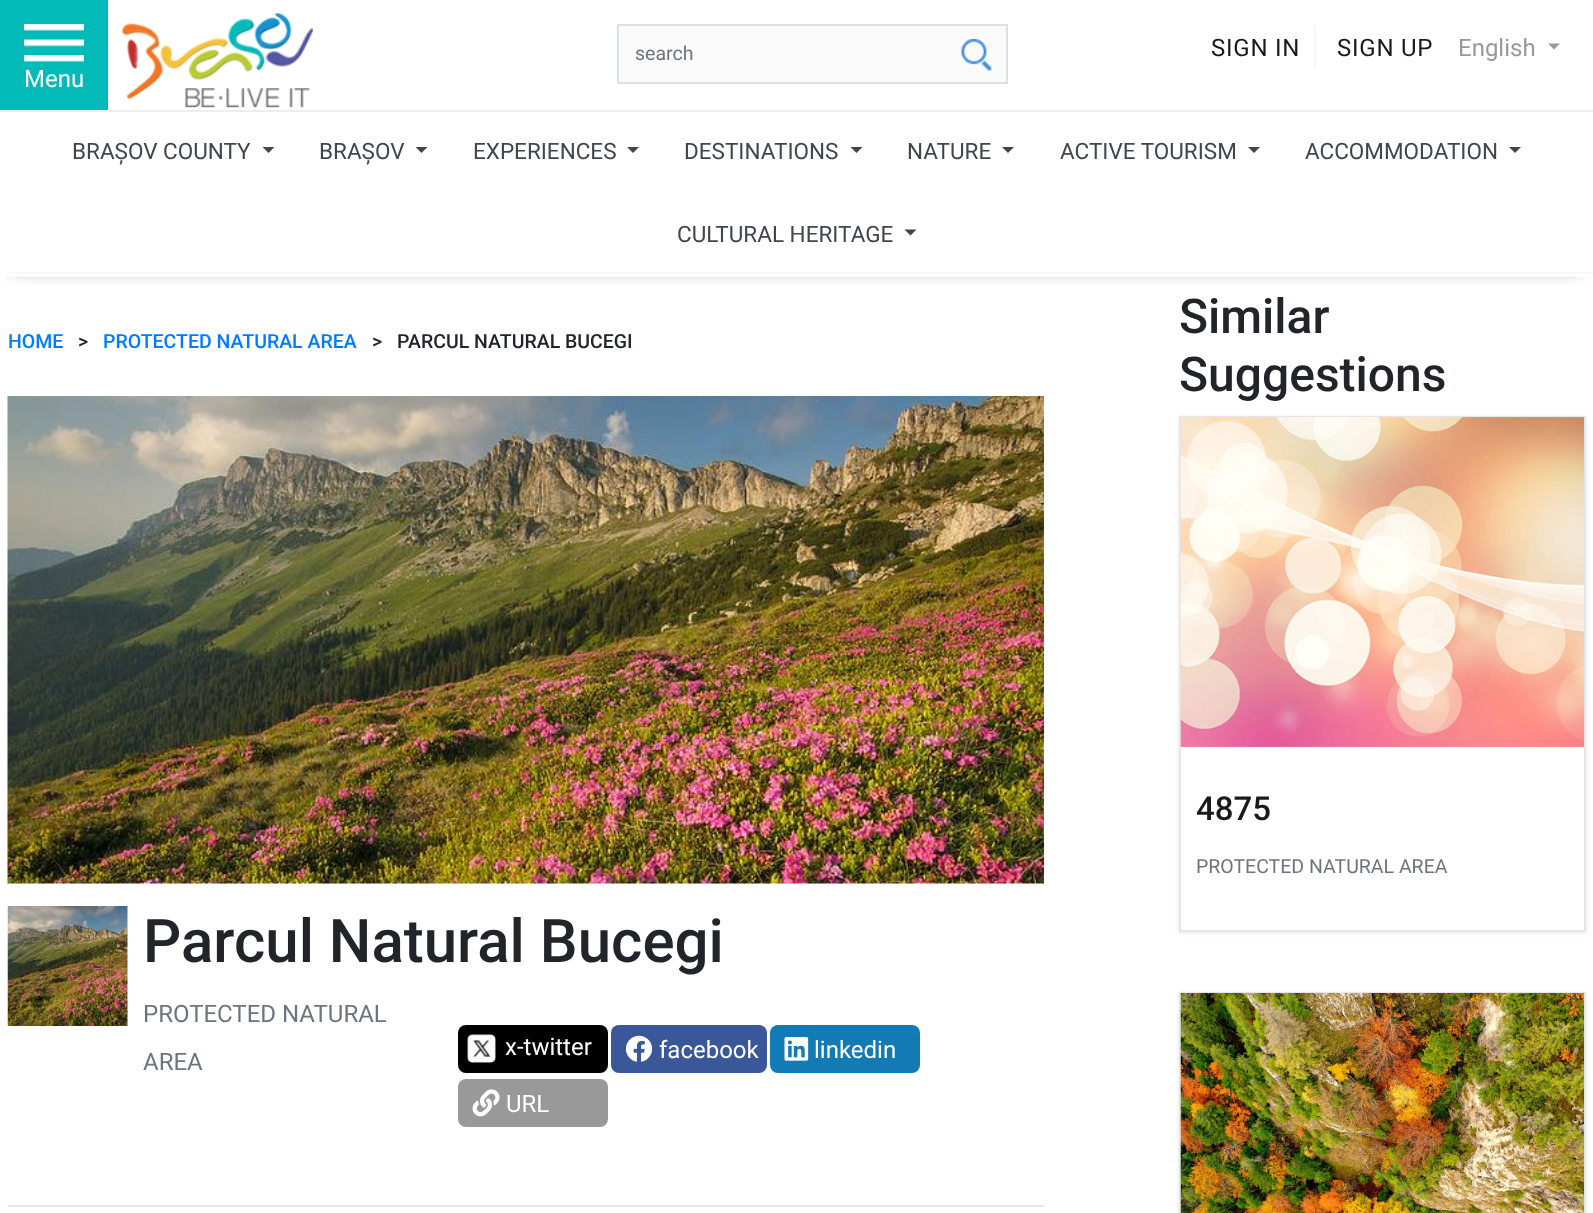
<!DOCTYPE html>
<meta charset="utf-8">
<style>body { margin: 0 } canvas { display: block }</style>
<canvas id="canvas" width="1593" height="1213"></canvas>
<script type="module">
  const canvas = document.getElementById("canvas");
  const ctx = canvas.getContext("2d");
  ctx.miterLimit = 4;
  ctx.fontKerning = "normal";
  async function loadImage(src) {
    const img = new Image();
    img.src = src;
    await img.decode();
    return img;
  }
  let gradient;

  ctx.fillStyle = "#ffffff";
  ctx.fillRect(0, 0, 1593, 1213);
  ctx.drawImage(await loadImage("img1.png"), 122, 13, 191, 95);
  ctx.fillStyle = "#fafafa";
  ctx.fillRect(619, 26, 387, 56);
  ctx.drawImage(await loadImage("img2.png"), 961, 39, 31, 32);
  ctx.strokeStyle = "#dbe0e5";
  ctx.lineWidth = 2;
  ctx.strokeRect(618, 25, 389, 58);
  ctx.font = "19.5px Roboto";
  ctx.fillStyle = "#6c757d";
  ctx.fillText("search", 635, 60);
  ctx.letterSpacing = "0.75px";
  ctx.font = "24px Roboto";
  ctx.fillStyle = "#1a1a1a";
  ctx.fillText("SIGN IN", 1211, 56);
  ctx.drawImage(await loadImage("img3.png"), 1314, 25, 2, 44);
  ctx.fillText("SIGN UP", 1337, 56);
  ctx.letterSpacing = "0px";
  ctx.fillStyle = "#999999";
  ctx.fillText("English", 1458, 56);
  ctx.beginPath();
  ctx.moveTo(1548, 43.5);
  ctx.lineTo(1560, 43.5);
  ctx.lineTo(1554, 49.5);
  ctx.closePath();
  ctx.fill();
  ctx.fillStyle = "#02bab8";
  ctx.fillRect(0, 0, 108, 110);
  ctx.drawImage(await loadImage("img4.png"), 24, 24, 60, 38);
  ctx.fillStyle = "#ffffff";
  ctx.fillText("Menu", 24, 87);
  ctx.save();
  ctx.beginPath();
  ctx.rect(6, 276, 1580, 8);
  ctx.clip();
  ctx.fillStyle = "rgba(17, 17, 17, 0.34)";
  ctx.filter = "blur(7.5px)";
  ctx.beginPath();
  ctx.rect(12, 159, 1569, 113);
  ctx.fill();
  ctx.filter = "none";
  ctx.restore();
  ctx.fillStyle = "#eeeeee";
  ctx.fillRect(0, 110, 1593, 2);
  ctx.font = "22.5px Roboto";
  ctx.fillStyle = "#3f474c";
  ctx.fillText("BRAȘOV COUNTY", 72, 159);
  ctx.beginPath();
  ctx.moveTo(262.5, 147);
  ctx.lineTo(274.5, 147);
  ctx.lineTo(268.5, 153);
  ctx.closePath();
  ctx.fill();
  ctx.fillText("BRAȘOV", 319, 159);
  ctx.beginPath();
  ctx.moveTo(415.5, 147);
  ctx.lineTo(427.5, 147);
  ctx.lineTo(421.5, 153);
  ctx.closePath();
  ctx.fill();
  ctx.fillText("EXPERIENCES", 473, 159);
  ctx.beginPath();
  ctx.moveTo(627, 147);
  ctx.lineTo(639, 147);
  ctx.lineTo(633, 153);
  ctx.closePath();
  ctx.fill();
  ctx.fillText("DESTINATIONS", 684, 159);
  ctx.beginPath();
  ctx.moveTo(850.5, 147);
  ctx.lineTo(862.5, 147);
  ctx.lineTo(856.5, 153);
  ctx.closePath();
  ctx.fill();
  ctx.fillText("NATURE", 907, 159);
  ctx.beginPath();
  ctx.moveTo(1002, 147);
  ctx.lineTo(1014, 147);
  ctx.lineTo(1008, 153);
  ctx.closePath();
  ctx.fill();
  ctx.fillText("ACTIVE TOURISM", 1060, 159);
  ctx.beginPath();
  ctx.moveTo(1248, 147);
  ctx.lineTo(1260, 147);
  ctx.lineTo(1254, 153);
  ctx.closePath();
  ctx.fill();
  ctx.fillText("ACCOMMODATION", 1305, 159);
  ctx.beginPath();
  ctx.moveTo(1509, 147);
  ctx.lineTo(1521, 147);
  ctx.lineTo(1515, 153);
  ctx.closePath();
  ctx.fill();
  ctx.fillText("CULTURAL HERITAGE", 677, 242);
  ctx.beginPath();
  ctx.moveTo(904.5, 229.5);
  ctx.lineTo(916.5, 229.5);
  ctx.lineTo(910.5, 235.5);
  ctx.closePath();
  ctx.fill();
  gradient = ctx.createLinearGradient(819, 271, 819, 276);
  gradient.addColorStop(0.39, "#f7f7f7");
  gradient.addColorStop(0.75, "#ffffff");
  ctx.fillStyle = gradient;
  ctx.fillRect(8, 272, 1585, 5);
  ctx.font = "500 19.5px Roboto";
  ctx.fillStyle = "#007bff";
  ctx.fillText("HOME", 8, 348);
  ctx.fillStyle = "#212529";
  ctx.fillText(">", 78, 348);
  ctx.fillStyle = "#007bff";
  ctx.fillText("PROTECTED NATURAL AREA", 103, 348);
  ctx.fillStyle = "#212529";
  ctx.fillText(">", 372, 348);
  ctx.fillText("PARCUL NATURAL BUCEGI", 397, 348);
  ctx.fillStyle = "#fafafa";
  ctx.fillRect(8, 883, 1036, 1);
  ctx.drawImage(await loadImage("img5.png"), 7, 396, 1037, 488);
  ctx.drawImage(await loadImage("img6.png"), 7, 906, 121, 120);
  ctx.font = "500 60px Roboto";
  ctx.fillStyle = "#212529";
  ctx.fillText("Parcul Natural Bucegi", 143, 962);
  ctx.font = "24px Roboto";
  ctx.fillStyle = "#6c757d";
  ctx.fillText("PROTECTED NATURAL", 143, 1022);
  ctx.fillText("AREA", 143, 1070);
  ctx.fillStyle = "#000000";
  ctx.beginPath();
  ctx.roundRect(458, 1025, 150, 48, 8);
  ctx.fill();
  ctx.drawImage(await loadImage("img7.png"), 467, 1034, 29, 29);
  ctx.fillStyle = "#ffffff";
  ctx.fillText("x-twitter", 505, 1055);
  ctx.fillStyle = "#3a579a";
  ctx.beginPath();
  ctx.roundRect(611, 1025, 156, 48, 8);
  ctx.fill();
  ctx.drawImage(await loadImage("img8.png"), 625, 1035, 28, 27);
  ctx.fillStyle = "#ffffff";
  ctx.fillText("facebook", 659, 1058);
  ctx.fillStyle = "#127bb6";
  ctx.beginPath();
  ctx.roundRect(770, 1025, 150, 48, 8);
  ctx.fill();
  ctx.drawImage(await loadImage("img9.png"), 784, 1037, 25, 24);
  ctx.fillStyle = "#ffffff";
  ctx.fillText("linkedin", 814, 1058);
  ctx.fillStyle = "#999999";
  ctx.beginPath();
  ctx.roundRect(458, 1079, 150, 48, 8);
  ctx.fill();
  ctx.drawImage(await loadImage("img10.png"), 472, 1089, 28, 28);
  ctx.fillStyle = "#ffffff";
  ctx.fillText("URL", 506, 1112);
  ctx.fillStyle = "#e6e6e6";
  ctx.fillRect(8, 1205, 1036, 2);
  ctx.font = "500 48px Roboto";
  ctx.fillStyle = "#212529";
  ctx.fillText("Similar", 1179, 333);
  ctx.fillText("Suggestions", 1179, 391);
  ctx.save();
  ctx.beginPath();
  ctx.moveTo(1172, 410);
  ctx.lineTo(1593, 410);
  ctx.lineTo(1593, 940);
  ctx.lineTo(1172, 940);
  ctx.closePath();
  ctx.moveTo(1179, 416);
  ctx.lineTo(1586, 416);
  ctx.lineTo(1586, 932);
  ctx.lineTo(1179, 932);
  ctx.closePath();
  ctx.clip("evenodd");
  ctx.fillStyle = "#e6e6e6";
  ctx.filter = "blur(2px)";
  ctx.beginPath();
  ctx.rect(1179, 417, 407, 516);
  ctx.fill();
  ctx.filter = "none";
  ctx.restore();
  ctx.strokeStyle = "#e6e6e6";
  ctx.strokeRect(1180, 417, 405, 514);
  ctx.drawImage(await loadImage("img11.png"), 1180, 417, 404, 330);
  ctx.font = "500 33px Roboto";
  ctx.fillStyle = "#1a1a1a";
  ctx.fillText("4875", 1196, 820);
  ctx.font = "19.5px Roboto";
  ctx.fillStyle = "#6c757d";
  ctx.fillText("PROTECTED NATURAL AREA", 1196, 873);
  ctx.fillStyle = "#e6e6e6";
  ctx.filter = "blur(2px)";
  ctx.beginPath();
  ctx.rect(1179, 993, 407, 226);
  ctx.fill();
  ctx.filter = "none";
  ctx.strokeRect(1180, 993, 405, 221);
  ctx.drawImage(await loadImage("img12.png"), 1180, 993, 404, 220);
</script>
